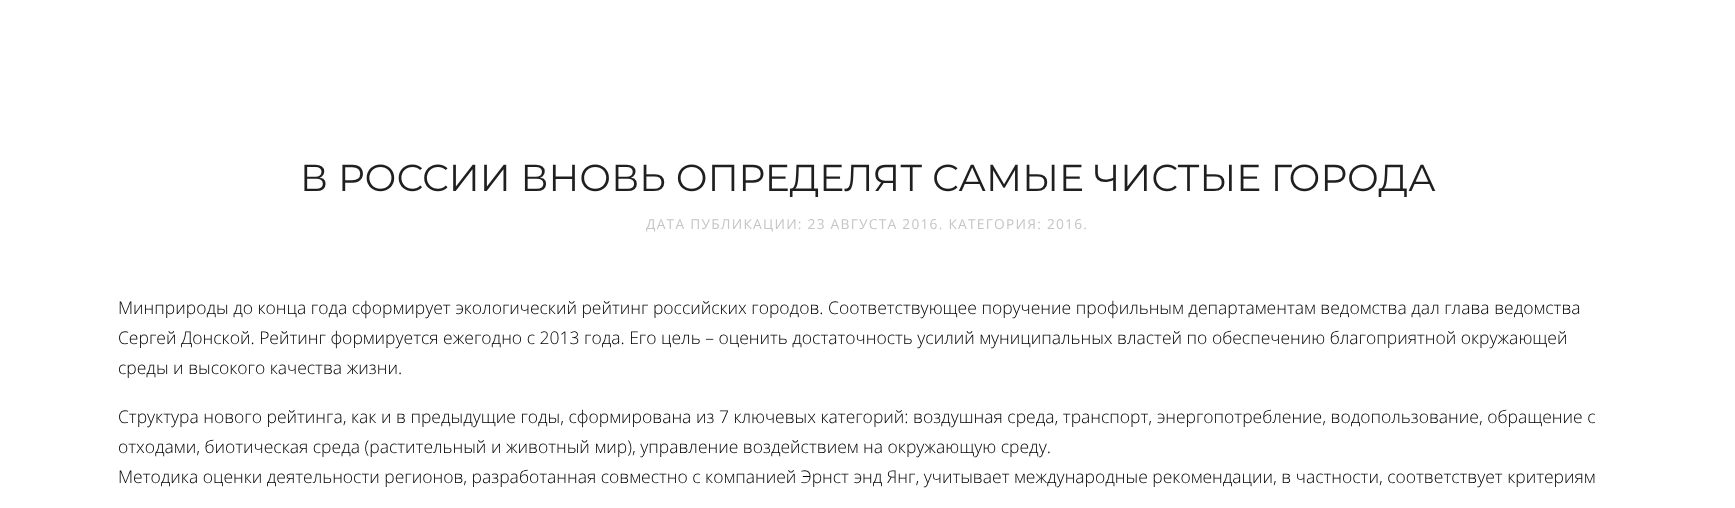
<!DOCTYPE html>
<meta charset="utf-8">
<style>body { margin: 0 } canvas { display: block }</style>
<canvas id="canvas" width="1735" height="508"></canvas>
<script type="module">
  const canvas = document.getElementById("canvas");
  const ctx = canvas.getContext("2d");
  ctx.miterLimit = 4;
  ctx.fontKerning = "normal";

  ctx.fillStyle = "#ffffff";
  ctx.fillRect(0, 0, 1735, 508);
  ctx.font = "100 37.5px Montserrat";
  ctx.fillStyle = "#1f1e20";
  ctx.fillText("В РОССИИ ВНОВЬ ОПРЕДЕЛЯТ САМЫЕ ЧИСТЫЕ ГОРОДА", 300, 191);
  ctx.letterSpacing = "1.25px";
  ctx.font = "13.75px Open Sans";
  ctx.fillStyle = "#c4c5c6";
  ctx.fillText("ДАТА ПУБЛИКАЦИИ: 23 АВГУСТА 2016. КАТЕГОРИЯ: 2016.", 646, 229);
  ctx.letterSpacing = "0px";
  ctx.font = "300 17.5px Open Sans";
  ctx.fillStyle = "#000000";
  ctx.fillText("Минприроды до конца года сформирует экологический рейтинг российских городов. Соответствующее поручение профильным департаментам ведомства дал глава ведомства", 118, 314);
  ctx.fillText("Сергей Донской. Рейтинг формируется ежегодно с 2013 года. Его цель – оценить достаточность усилий муниципальных властей по обеспечению благоприятной окружающей", 118, 344);
  ctx.fillText("среды и высокого качества жизни.", 118, 374);
  ctx.fillText("Структура нового рейтинга, как и в предыдущие годы, сформирована из 7 ключевых категорий: воздушная среда, транспорт, энергопотребление, водопользование, обращение с", 118, 423);
  ctx.fillText("отходами, биотическая среда (растительный и животный мир), управление воздействием на окружающую среду.", 118, 453);
  ctx.fillText("Методика оценки деятельности регионов, разработанная совместно с компанией Эрнст энд Янг, учитывает международные рекомендации, в частности, соответствует критериям", 118, 483);
</script>
